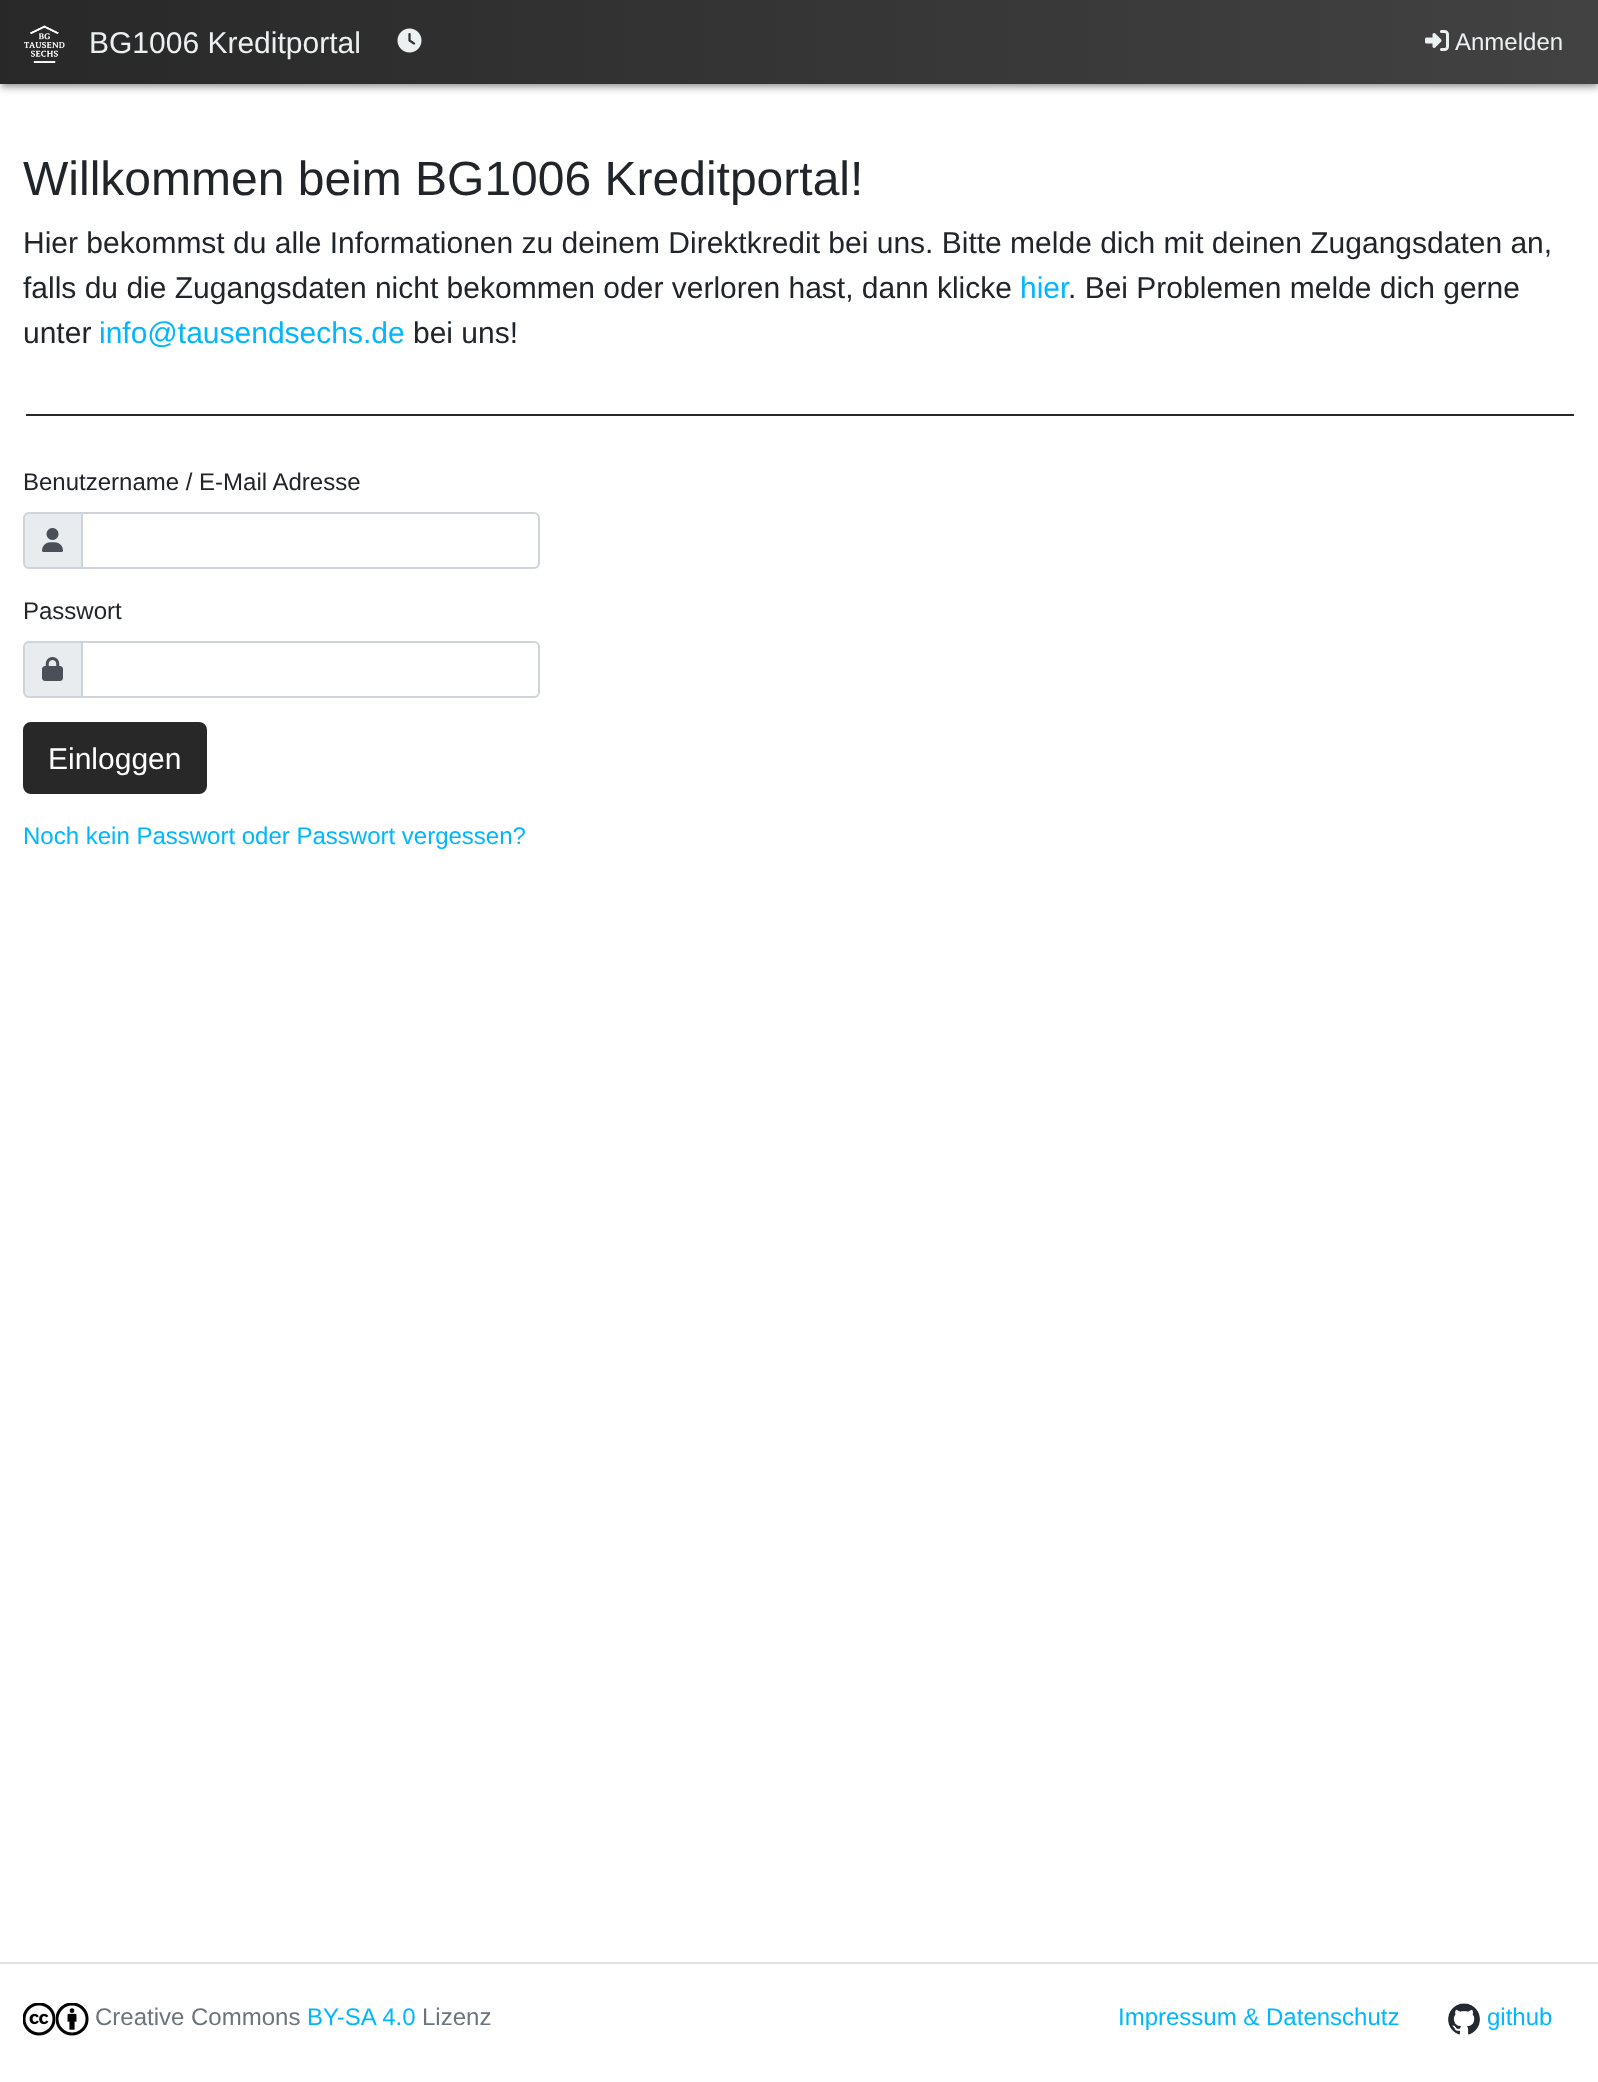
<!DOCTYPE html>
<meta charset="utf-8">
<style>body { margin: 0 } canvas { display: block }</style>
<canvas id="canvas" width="1598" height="2082"></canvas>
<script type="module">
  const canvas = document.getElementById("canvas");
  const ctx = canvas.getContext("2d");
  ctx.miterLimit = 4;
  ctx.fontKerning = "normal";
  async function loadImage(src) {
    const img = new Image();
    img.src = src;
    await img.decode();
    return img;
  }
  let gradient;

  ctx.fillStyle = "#ffffff";
  ctx.fillRect(0, 0, 1598, 2082);
  ctx.fillStyle = "rgba(0, 0, 0, 0.12)";
  ctx.filter = "blur(6px)";
  ctx.beginPath();
  ctx.rect(0, 2, 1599, 84);
  ctx.fill();
  ctx.filter = "none";
  ctx.fillStyle = "rgba(0, 0, 0, 0.14)";
  ctx.filter = "blur(3px)";
  ctx.beginPath();
  ctx.rect(0, 5, 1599, 84);
  ctx.fill();
  ctx.filter = "none";
  ctx.fillStyle = "rgba(0, 0, 0, 0.2)";
  ctx.filter = "blur(2px)";
  ctx.beginPath();
  ctx.rect(3, 8, 1593, 78);
  ctx.fill();
  ctx.filter = "none";
  gradient = ctx.createLinearGradient(0, 42, 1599, 42);
  gradient.addColorStop(0, "#282828");
  gradient.addColorStop(1, "#424242");
  ctx.fillStyle = gradient;
  ctx.fillRect(0, 0, 1598, 84);
  ctx.drawImage(await loadImage("img1.png"), 24, 25, 41, 38);
  ctx.font = "30px Liberation Sans";
  ctx.fillStyle = "#ecf0f1";
  ctx.fillText("BG1006 Kreditportal", 89, 53);
  ctx.drawImage(await loadImage("img2.png"), 397, 28, 25, 25);
  ctx.drawImage(await loadImage("img3.png"), 1425, 30, 24, 21);
  ctx.font = "24px Liberation Sans";
  ctx.fillText("Anmelden", 1455, 50);
  ctx.fillStyle = "#282828";
  ctx.fillRect(26, 414, 1548, 2);
  ctx.font = "48px Liberation Sans";
  ctx.fillStyle = "#212529";
  ctx.fillText("Willkommen beim BG1006 Kreditportal!", 23, 195);
  ctx.font = "30px Liberation Sans";
  ctx.fillText("Hier bekommst du alle Informationen zu deinem Direktkredit bei uns. Bitte melde dich mit deinen Zugangsdaten an,", 23, 253);
  ctx.fillText("falls du die Zugangsdaten nicht bekommen oder verloren hast, dann klicke", 23, 298);
  ctx.fillStyle = "#00b7ff";
  ctx.fillText("hier", 1020, 298);
  ctx.fillStyle = "#212529";
  ctx.fillText(". Bei Problemen melde dich gerne", 1068, 298);
  ctx.fillText("unter", 23, 343);
  ctx.fillStyle = "#00b7ff";
  ctx.fillText("info@tausendsechs.de", 99, 343);
  ctx.fillStyle = "#212529";
  ctx.fillText("bei uns!", 413, 343);
  ctx.font = "24px Liberation Sans";
  ctx.fillText("Benutzername / E-Mail Adresse", 23, 490);
  ctx.fillStyle = "#e9ecef";
  ctx.beginPath();
  ctx.roundRect(24, 513, 58, 55, [5, 0, 0, 5]);
  ctx.fill();
  ctx.strokeStyle = "#ced4da";
  ctx.lineWidth = 2;
  ctx.stroke();
  ctx.drawImage(await loadImage("img4.png"), 42, 528, 21, 24);
  ctx.beginPath();
  ctx.roundRect(82, 513, 457, 55, [0, 5, 5, 0]);
  ctx.stroke();
  ctx.fillStyle = "#212529";
  ctx.fillText("Passwort", 23, 619);
  ctx.fillStyle = "#e9ecef";
  ctx.beginPath();
  ctx.roundRect(24, 642, 58, 55, [5, 0, 0, 5]);
  ctx.fill();
  ctx.stroke();
  ctx.drawImage(await loadImage("img5.png"), 42, 657, 21, 24);
  ctx.beginPath();
  ctx.roundRect(82, 642, 457, 55, [0, 5, 5, 0]);
  ctx.stroke();
  ctx.fillStyle = "#282828";
  ctx.beginPath();
  ctx.roundRect(24, 723, 182, 70, 7);
  ctx.fill();
  ctx.strokeStyle = "#282828";
  ctx.stroke();
  ctx.font = "30px Liberation Sans";
  ctx.fillStyle = "#ffffff";
  ctx.fillText("Einloggen", 48, 769);
  ctx.font = "24px Liberation Sans";
  ctx.fillStyle = "#00b7ff";
  ctx.fillText("Noch kein Passwort oder Passwort vergessen?", 23, 844);
  ctx.fillStyle = "#dee2e6";
  ctx.fillRect(0, 1962, 1598, 2);
  ctx.drawImage(await loadImage("img6.png"), 23, 2003, 33, 33);
  ctx.drawImage(await loadImage("img7.png"), 56, 2003, 33, 33);
  ctx.fillStyle = "#6c757d";
  ctx.fillText("Creative Commons", 95, 2025);
  ctx.fillStyle = "#00b7ff";
  ctx.fillText("BY-SA 4.0", 307, 2025);
  ctx.fillStyle = "#6c757d";
  ctx.fillText("Lizenz", 422, 2025);
  ctx.fillStyle = "#00b7ff";
  ctx.fillText("Impressum & Datenschutz", 1118, 2025);
  ctx.drawImage(await loadImage("img8.png"), 1448, 2003, 32, 32);
  ctx.fillText("github", 1487, 2025);
</script>
